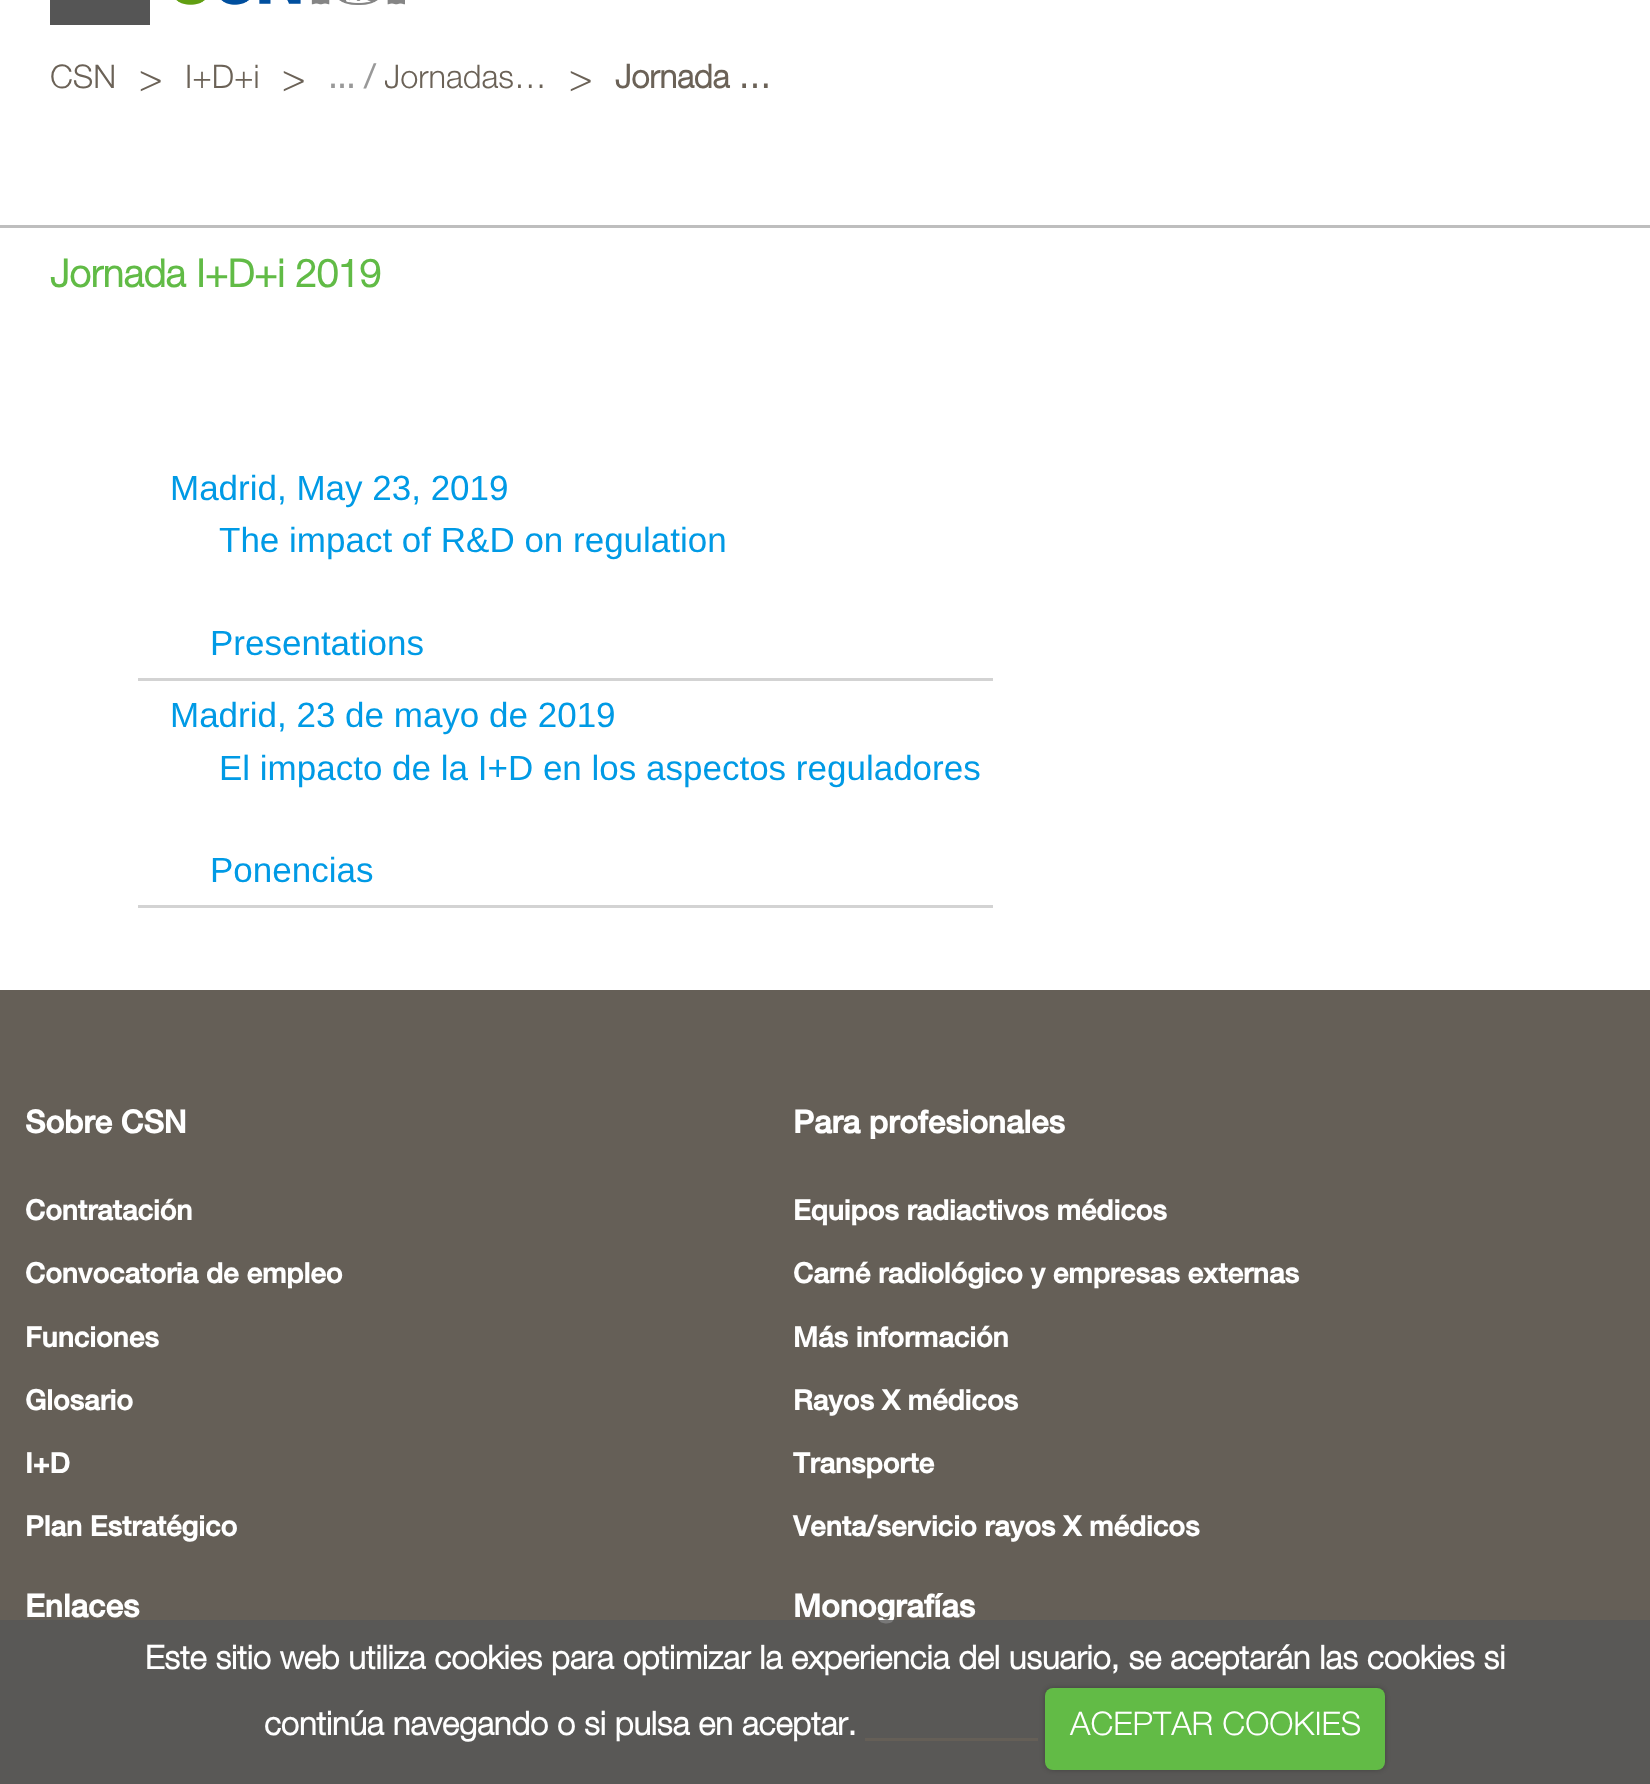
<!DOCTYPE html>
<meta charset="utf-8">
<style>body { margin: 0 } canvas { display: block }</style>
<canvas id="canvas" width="1650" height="1784"></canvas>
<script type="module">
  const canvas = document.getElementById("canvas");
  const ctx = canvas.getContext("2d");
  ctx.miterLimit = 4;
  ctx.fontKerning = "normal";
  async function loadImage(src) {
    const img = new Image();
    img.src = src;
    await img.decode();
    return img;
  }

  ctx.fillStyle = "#ffffff";
  ctx.fillRect(0, 0, 1650, 1784);
  ctx.fillStyle = "#555555";
  ctx.fillRect(50, 0, 100, 25);
  ctx.drawImage(await loadImage("img1.png"), 176, 0, 229, 5);
  ctx.font = "300 32.5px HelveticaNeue";
  ctx.fillStyle = "#6b6257";
  ctx.fillText("CSN", 50, 88);
  ctx.font = "300 39px HelveticaNeue";
  ctx.fillText(">", 139, 91);
  ctx.font = "300 32.5px HelveticaNeue";
  ctx.fillText("I+D+i", 185, 88);
  ctx.font = "300 39px HelveticaNeue";
  ctx.fillText(">", 282, 91);
  ctx.font = "bold 32.5px HelveticaNeue";
  ctx.fillStyle = "#999999";
  ctx.fillText("... /", 328, 88);
  ctx.save();
  ctx.beginPath();
  ctx.rect(385, 63, 163, 32);
  ctx.clip();
  ctx.font = "300 32.5px HelveticaNeue";
  ctx.fillStyle = "#6b6257";
  ctx.fillText("Jornadas…", 384, 88);
  ctx.restore();
  ctx.font = "300 39px HelveticaNeue";
  ctx.fillStyle = "#6b6257";
  ctx.fillText(">", 569, 91);
  ctx.font = "bold 32.5px HelveticaNeue";
  ctx.fillText("Jornada …", 615, 88);
  ctx.fillStyle = "#bebebe";
  ctx.fillRect(0, 225, 1650, 3);
  ctx.font = "bold 38.5px HelveticaNeue";
  ctx.fillStyle = "#61bb46";
  ctx.fillText("Jornada I+D+i 2019", 50, 287);
  ctx.fillStyle = "#d3d3d3";
  ctx.fillRect(138, 678, 855, 3);
  ctx.font = "35px Liberation Sans";
  ctx.fillStyle = "#009ae5";
  ctx.fillText("Madrid, May 23, 2019", 170, 500);
  ctx.fillText("The impact of R&D on regulation", 219, 552);
  ctx.fillText("Presentations", 210, 655);
  ctx.fillStyle = "#d3d3d3";
  ctx.fillRect(138, 905, 855, 3);
  ctx.fillStyle = "#009ae5";
  ctx.fillText("Madrid, 23 de mayo de 2019", 170, 727);
  ctx.fillText("El impacto de la I+D en los aspectos reguladores", 219, 780);
  ctx.fillText("Ponencias", 210, 882);
  ctx.fillStyle = "#655f57";
  ctx.fillRect(0, 990, 1650, 794);
  ctx.font = "bold 31.5px 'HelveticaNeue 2'";
  ctx.fillStyle = "#ffffff";
  ctx.fillText("Sobre CSN", 25, 1133);
  ctx.font = "bold 28px 'HelveticaNeue 2'";
  ctx.fillText("Contratación", 25, 1220);
  ctx.fillText("Convocatoria de empleo", 25, 1283);
  ctx.fillText("Funciones", 25, 1347);
  ctx.fillText("Glosario", 25, 1410);
  ctx.fillText("I+D", 25, 1473);
  ctx.fillText("Plan Estratégico", 25, 1536);
  ctx.font = "bold 31.5px 'HelveticaNeue 2'";
  ctx.fillText("Para profesionales", 793, 1133);
  ctx.font = "bold 28px 'HelveticaNeue 2'";
  ctx.fillText("Equipos radiactivos médicos", 793, 1220);
  ctx.fillText("Carné radiológico y empresas externas", 793, 1283);
  ctx.fillText("Más información", 793, 1347);
  ctx.fillText("Rayos X médicos", 793, 1410);
  ctx.fillText("Transporte", 793, 1473);
  ctx.fillText("Venta/servicio rayos X médicos", 793, 1536);
  ctx.font = "bold 31.5px 'HelveticaNeue 2'";
  ctx.fillText("Enlaces", 25, 1617);
  ctx.fillText("Monografías", 793, 1617);
  ctx.fillStyle = "rgba(86, 86, 86, 0.8)";
  ctx.fillRect(0, 1620, 1650, 164);
  ctx.font = "bold 32.5px HelveticaNeue";
  ctx.fillStyle = "#ffffff";
  ctx.fillText("Este sitio web utiliza cookies para optimizar la experiencia del usuario, se aceptarán las cookies si", 145, 1669);
  ctx.fillText("continúa navegando o si pulsa en aceptar.", 264, 1735);
  ctx.fillStyle = "#655f57";
  ctx.fillRect(865, 1738, 173, 3);
  ctx.fillStyle = "rgba(0, 0, 0, 0.25)";
  ctx.filter = "blur(2.5px)";
  ctx.beginPath();
  ctx.roundRect(1045, 1688, 340, 82, 8);
  ctx.fill();
  ctx.filter = "none";
  ctx.fillStyle = "#62bb46";
  ctx.beginPath();
  ctx.roundRect(1045, 1688, 340, 82, 8);
  ctx.fill();
  ctx.font = "300 32.5px HelveticaNeue";
  ctx.fillStyle = "#ffffff";
  ctx.fillText("ACEPTAR COOKIES", 1070, 1735);
</script>
